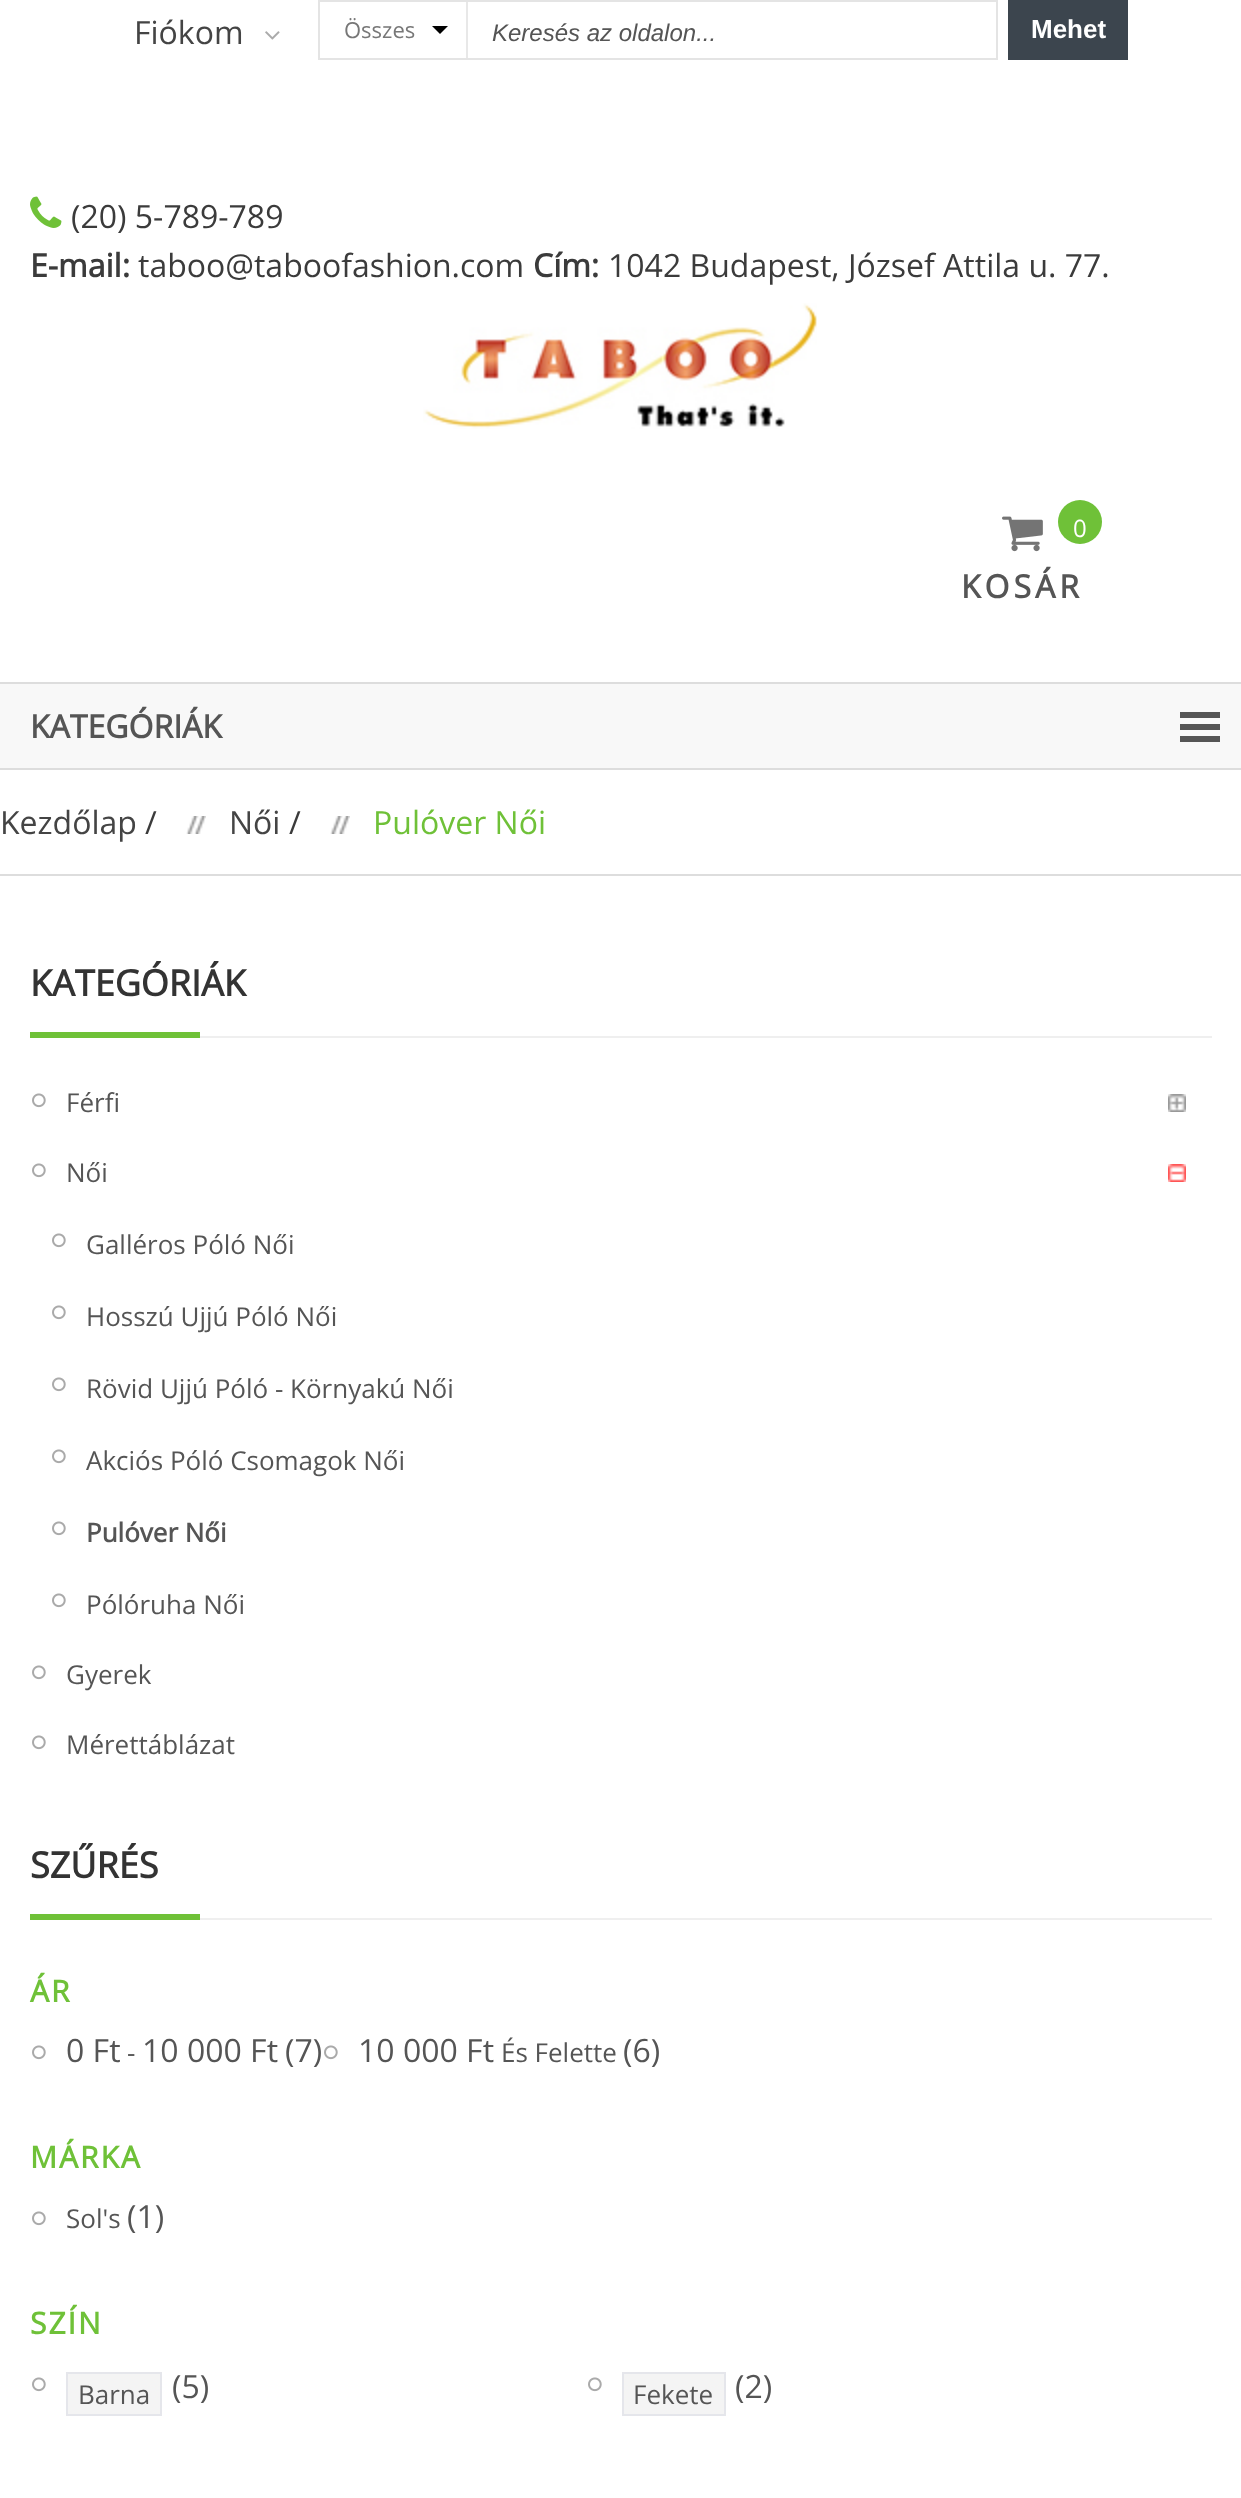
<!DOCTYPE html>
<meta charset="utf-8">
<style>body { margin: 0 } canvas { display: block }</style>
<canvas id="canvas" width="1241" height="2498"></canvas>
<script type="module">
  const canvas = document.getElementById("canvas");
  const ctx = canvas.getContext("2d");
  ctx.miterLimit = 4;
  ctx.fontKerning = "normal";
  async function loadImage(src) {
    const img = new Image();
    img.src = src;
    await img.decode();
    return img;
  }

  ctx.fillStyle = "#ffffff";
  ctx.fillRect(0, 0, 1241, 2498);
  ctx.font = "32px Open Sans";
  ctx.fillStyle = "#444444";
  ctx.fillText("Fiókom", 134, 44);
  ctx.drawImage(await loadImage("img1.png"), 265, 31, 15, 9);
  ctx.strokeStyle = "#e4e4e4";
  ctx.lineWidth = 2;
  ctx.strokeRect(319, 1, 678, 58);
  ctx.fillStyle = "#e8e8e8";
  ctx.fillRect(466, 2, 2, 56);
  ctx.font = "22px Open Sans";
  ctx.fillStyle = "#777777";
  ctx.fillText("Összes", 344, 38);
  ctx.fillStyle = "#000000";
  ctx.beginPath();
  ctx.moveTo(432, 26);
  ctx.lineTo(448, 26);
  ctx.lineTo(440, 34);
  ctx.closePath();
  ctx.fill();
  ctx.font = "italic 24px Liberation Sans";
  ctx.fillStyle = "#555555";
  ctx.fillText("Keresés az oldalon...", 492, 41);
  ctx.fillStyle = "#3c454e";
  ctx.fillRect(1008, 0, 120, 60);
  ctx.font = "bold 26px Liberation Sans";
  ctx.fillStyle = "#ffffff";
  ctx.fillText("Mehet", 1031, 38);
  ctx.drawImage(await loadImage("img2.png"), 30, 196, 32, 32);
  ctx.font = "32px Open Sans";
  ctx.fillStyle = "#3b3b3b";
  ctx.fillText("(20) 5-789-789", 71, 228);
  ctx.font = "bold 32px Open Sans";
  ctx.fillText("E-mail:", 30, 277);
  ctx.font = "32px Open Sans";
  ctx.fillText("taboo@taboofashion.com", 138, 277);
  ctx.font = "bold 32px Open Sans";
  ctx.fillText("Cím:", 533, 277);
  ctx.font = "32px Open Sans";
  ctx.fillText("1042 Budapest, József Attila u. 77.", 608, 277);
  ctx.drawImage(await loadImage("img3.png"), 423, 303, 394, 126);
  ctx.fillStyle = "#6fc138";
  ctx.beginPath();
  ctx.arc(1080, 522, 22, 0, Math.PI * 2);
  ctx.fill();
  ctx.font = "24px Open Sans";
  ctx.fillStyle = "#ffffff";
  ctx.fillText("0", 1073, 537);
  ctx.drawImage(await loadImage("img4.png"), 1002, 516, 41, 36);
  ctx.letterSpacing = "4px";
  ctx.font = "bold 32px Open Sans";
  ctx.fillStyle = "#555555";
  ctx.fillText("KOSÁR", 961, 598);
  ctx.fillStyle = "#dddddd";
  ctx.fillRect(0, 682, 1241, 2);
  ctx.fillRect(0, 768, 1241, 2);
  ctx.fillStyle = "#f8f8f8";
  ctx.fillRect(0, 684, 1241, 84);
  ctx.letterSpacing = "0px";
  ctx.fillStyle = "#555555";
  ctx.fillText("KATEGÓRIÁK", 30, 738);
  ctx.fillRect(1180, 712, 40, 6);
  ctx.fillRect(1180, 724, 40, 6);
  ctx.fillRect(1180, 736, 40, 6);
  ctx.fillStyle = "#dddddd";
  ctx.fillRect(0, 874, 1241, 2);
  ctx.font = "32px Open Sans";
  ctx.fillStyle = "#444444";
  ctx.fillText("Kezdőlap", 0, 834);
  ctx.fillStyle = "#3b3b3b";
  ctx.fillText("/", 145, 834);
  ctx.drawImage(await loadImage("img5.png"), 186, 816, 20, 18);
  ctx.fillStyle = "#444444";
  ctx.fillText("Női", 229, 834);
  ctx.fillStyle = "#3b3b3b";
  ctx.fillText("/", 289, 834);
  ctx.drawImage(await loadImage("img5.png"), 330, 816, 20, 18);
  ctx.fillStyle = "#6fc138";
  ctx.fillText("Pulóver Női", 373, 834);
  ctx.font = "bold 36px Open Sans";
  ctx.fillStyle = "#333333";
  ctx.fillText("KATEGÓRIÁK", 30, 996);
  ctx.fillStyle = "#efefef";
  ctx.fillRect(200, 1036, 1012, 2);
  ctx.fillStyle = "#6fc138";
  ctx.fillRect(30, 1032, 170, 6);
  ctx.drawImage(await loadImage("img6.png"), 32, 1093, 14, 15);
  ctx.font = "26px Open Sans";
  ctx.fillStyle = "#555555";
  ctx.fillText("Férfi", 66, 1112);
  ctx.drawImage(await loadImage("img7.png"), 1168, 1094, 18, 18);
  ctx.drawImage(await loadImage("img6.png"), 32, 1163, 14, 15);
  ctx.fillText("Női", 66, 1182);
  ctx.drawImage(await loadImage("img8.png"), 1168, 1164, 18, 18);
  ctx.drawImage(await loadImage("img6.png"), 52, 1233, 14, 15);
  ctx.fillText("Galléros Póló Női", 86, 1254);
  ctx.drawImage(await loadImage("img6.png"), 52, 1305, 14, 15);
  ctx.fillText("Hosszú Ujjú Póló Női", 86, 1326);
  ctx.drawImage(await loadImage("img6.png"), 52, 1377, 14, 15);
  ctx.fillText("Rövid Ujjú Póló - Környakú Női", 86, 1398);
  ctx.drawImage(await loadImage("img6.png"), 52, 1449, 14, 15);
  ctx.fillText("Akciós Póló Csomagok Női", 86, 1470);
  ctx.drawImage(await loadImage("img6.png"), 52, 1521, 14, 15);
  ctx.font = "bold 26px Open Sans";
  ctx.fillText("Pulóver Női", 86, 1542);
  ctx.drawImage(await loadImage("img6.png"), 52, 1593, 14, 15);
  ctx.font = "26px Open Sans";
  ctx.fillText("Pólóruha Női", 86, 1614);
  ctx.drawImage(await loadImage("img6.png"), 32, 1665, 14, 15);
  ctx.fillText("Gyerek", 66, 1684);
  ctx.drawImage(await loadImage("img6.png"), 32, 1735, 14, 15);
  ctx.fillText("Mérettáblázat", 66, 1754);
  ctx.font = "bold 36px Open Sans";
  ctx.fillStyle = "#333333";
  ctx.fillText("SZŰRÉS", 30, 1878);
  ctx.fillStyle = "#efefef";
  ctx.fillRect(200, 1918, 1012, 2);
  ctx.fillStyle = "#6fc138";
  ctx.fillRect(30, 1914, 170, 6);
  ctx.letterSpacing = "2px";
  ctx.font = "bold 30px Open Sans";
  ctx.fillText("ÁR", 30, 2002);
  ctx.drawImage(await loadImage("img6.png"), 32, 2045, 14, 15);
  ctx.letterSpacing = "0px";
  ctx.font = "32px Open Sans";
  ctx.fillStyle = "#555555";
  ctx.fillText("0 Ft", 66, 2062);
  ctx.font = "26px Open Sans";
  ctx.fillText("-", 127, 2062);
  ctx.font = "32px Open Sans";
  ctx.fillText("10 000 Ft", 142, 2062);
  ctx.fillText("(7)", 285, 2062);
  ctx.drawImage(await loadImage("img6.png"), 324, 2045, 14, 15);
  ctx.fillText("10 000 Ft", 358, 2062);
  ctx.font = "26px Open Sans";
  ctx.fillText("És Felette", 501, 2062);
  ctx.font = "32px Open Sans";
  ctx.fillText("(6)", 623, 2062);
  ctx.letterSpacing = "2px";
  ctx.font = "bold 30px Open Sans";
  ctx.fillStyle = "#6fc138";
  ctx.fillText("MÁRKA", 30, 2168);
  ctx.drawImage(await loadImage("img6.png"), 32, 2211, 14, 15);
  ctx.letterSpacing = "0px";
  ctx.font = "26px Open Sans";
  ctx.fillStyle = "#555555";
  ctx.fillText("Sol's", 66, 2228);
  ctx.font = "32px Open Sans";
  ctx.fillText("(1)", 127, 2228);
  ctx.letterSpacing = "2px";
  ctx.font = "bold 30px Open Sans";
  ctx.fillStyle = "#6fc138";
  ctx.fillText("SZÍN", 30, 2334);
  ctx.drawImage(await loadImage("img6.png"), 32, 2377, 14, 15);
  ctx.fillStyle = "#f4f4f4";
  ctx.beginPath();
  ctx.rect(67, 2373, 94, 42);
  ctx.fill();
  ctx.strokeStyle = "#e5e6eb";
  ctx.stroke();
  ctx.letterSpacing = "0px";
  ctx.font = "26px Open Sans";
  ctx.fillStyle = "#555555";
  ctx.fillText("Barna", 78, 2404);
  ctx.font = "32px Open Sans";
  ctx.fillText("(5)", 172, 2398);
  ctx.drawImage(await loadImage("img6.png"), 588, 2377, 14, 15);
  ctx.fillStyle = "#f4f4f4";
  ctx.beginPath();
  ctx.rect(623, 2373, 102, 42);
  ctx.fill();
  ctx.stroke();
  ctx.font = "26px Open Sans";
  ctx.fillStyle = "#555555";
  ctx.fillText("Fekete", 633, 2404);
  ctx.font = "32px Open Sans";
  ctx.fillText("(2)", 735, 2398);
</script>
